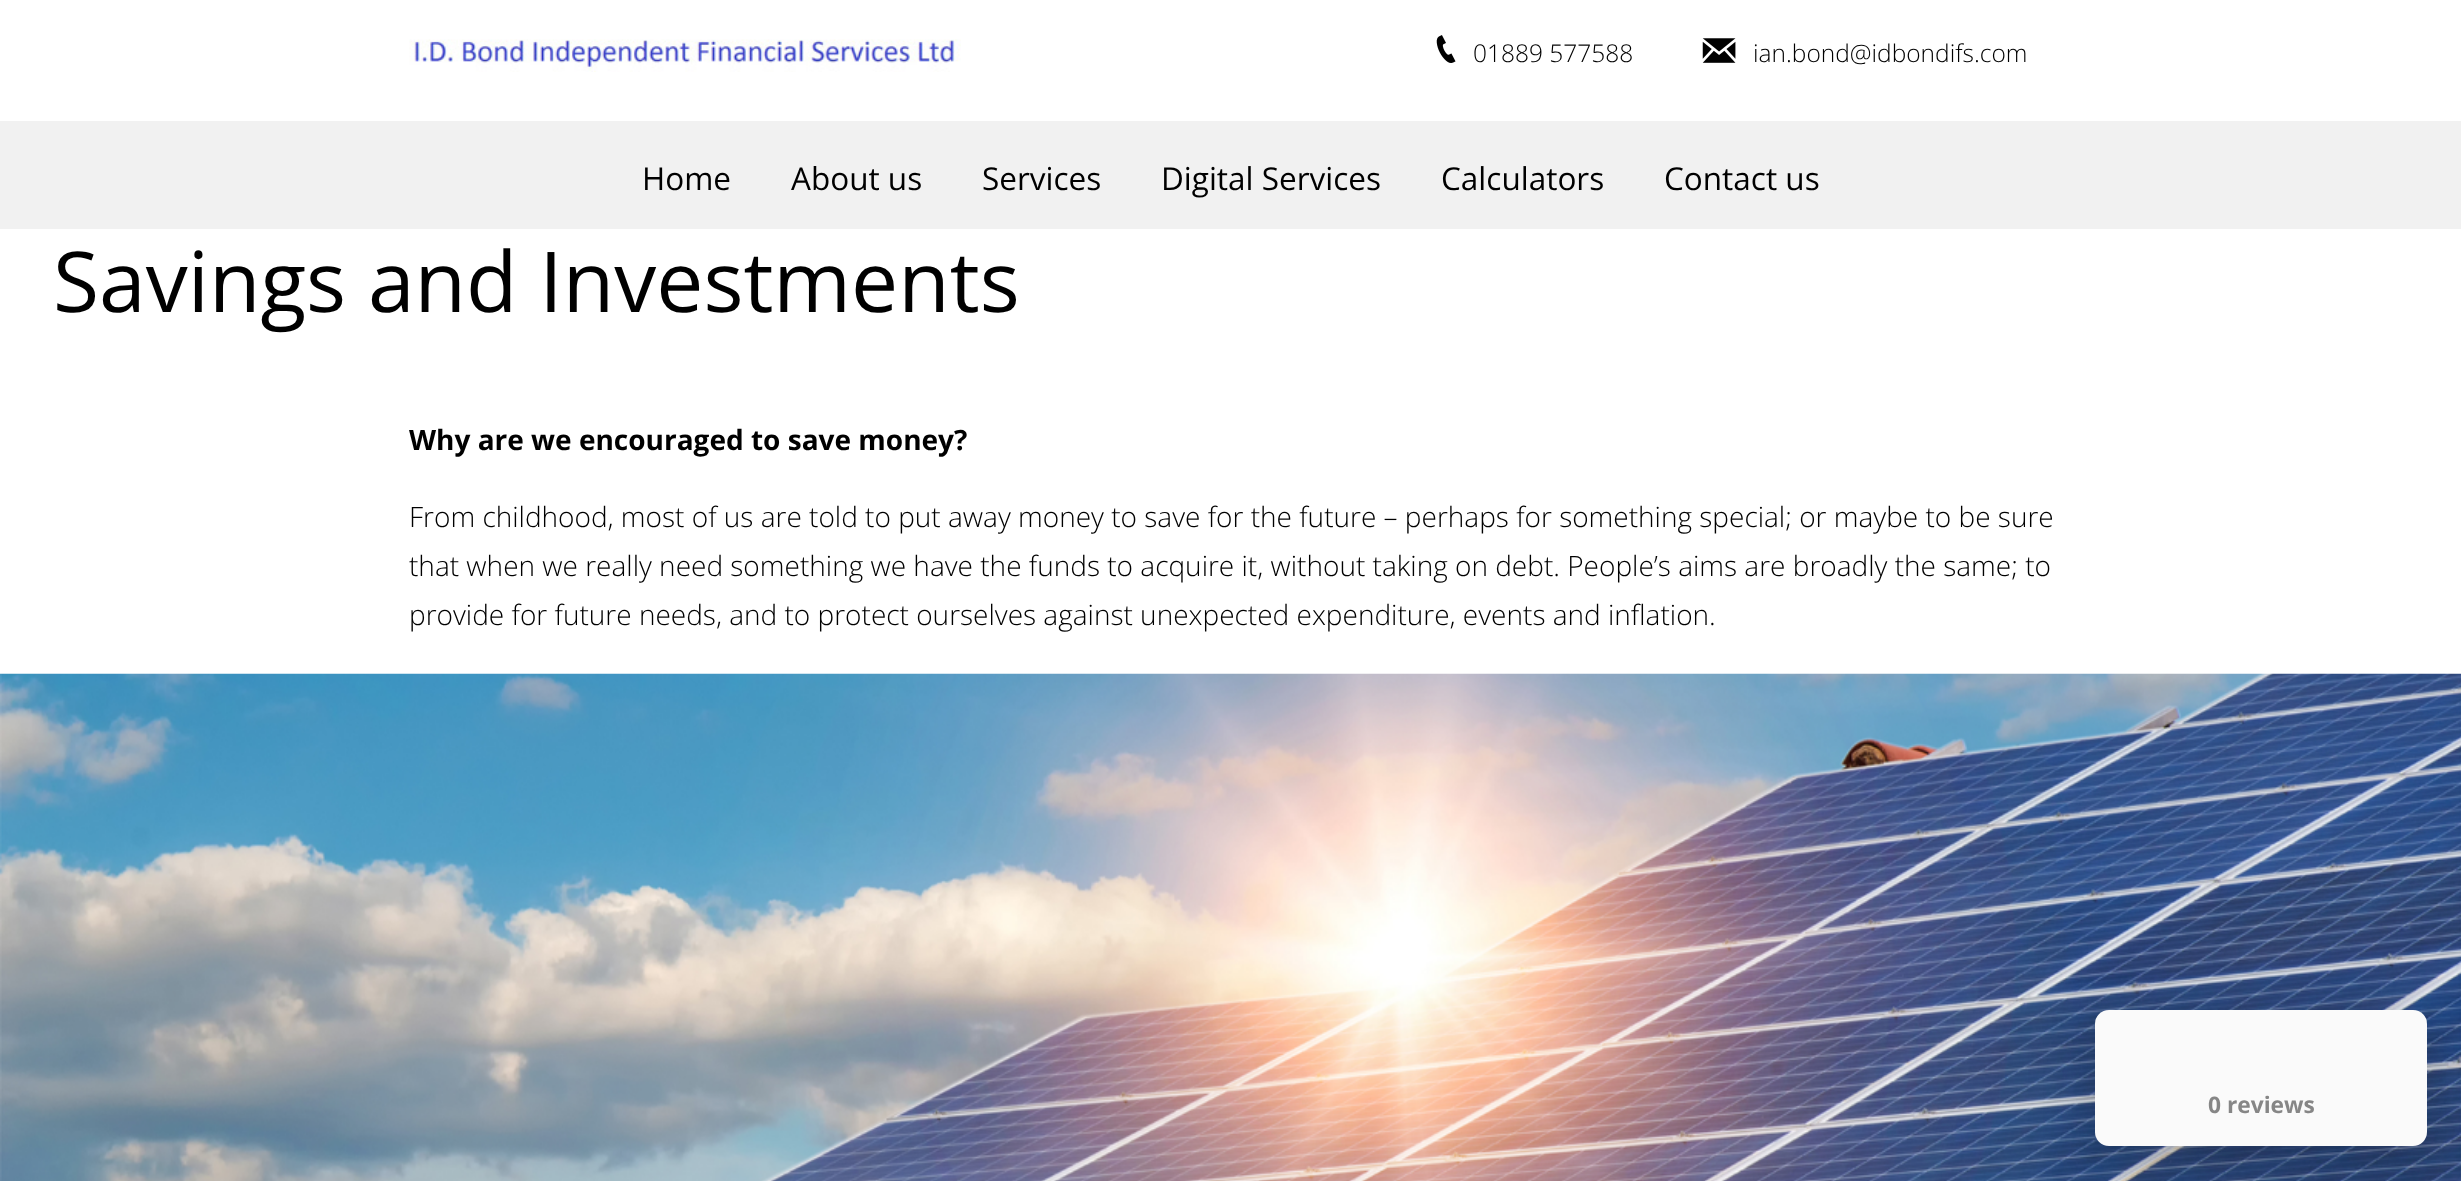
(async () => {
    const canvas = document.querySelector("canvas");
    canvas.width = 2461;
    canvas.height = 1181;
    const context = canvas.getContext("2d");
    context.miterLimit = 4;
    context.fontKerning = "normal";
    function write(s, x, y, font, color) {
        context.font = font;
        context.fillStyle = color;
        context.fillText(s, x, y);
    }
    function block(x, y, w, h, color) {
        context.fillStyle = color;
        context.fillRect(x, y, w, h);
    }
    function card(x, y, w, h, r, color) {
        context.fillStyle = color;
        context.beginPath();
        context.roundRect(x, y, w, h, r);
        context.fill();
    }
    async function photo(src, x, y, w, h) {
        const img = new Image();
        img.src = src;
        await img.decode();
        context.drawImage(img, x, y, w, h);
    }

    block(0, 0, 2461, 1181, "rgb(255, 255, 255)");
    await photo("media/1.png", 409, 39, 552, 33);
    await photo("media/2.png", 1436, 35, 20, 28);
    write("01889 577588", 1473, 62, "300 24.5px Open Sans", "rgb(0, 0, 0)");
    await photo("media/3.png", 1702, 38, 34, 25);
    write("ian.bond@idbondifs.com", 1753, 62, "300 24.5px Open Sans", "rgb(0, 0, 0)");
    block(0, 121, 2461, 108, "rgb(241, 241, 241)");
    write("Home", 642, 190, "31.5px Open Sans", "rgb(0, 0, 0)");
    write("About us", 791, 190, "31.5px Open Sans", "rgb(0, 0, 0)");
    write("Services", 982, 190, "31.5px Open Sans", "rgb(0, 0, 0)");
    write("Digital Services", 1161, 190, "31.5px Open Sans", "rgb(0, 0, 0)");
    write("Calculators", 1441, 190, "31.5px Open Sans", "rgb(0, 0, 0)");
    write("Contact us", 1664, 190, "31.5px Open Sans", "rgb(0, 0, 0)");
    write("Savings and Investments", 53, 312, "84px Open Sans", "rgb(0, 0, 0)");
    write("Why are we encouraged to save money?", 409, 450, "bold 28px Open Sans", "rgb(0, 0, 0)");
    write("From childhood, most of us are told to put away money to save for the future – perhaps for something special; or maybe to be sure", 409, 527, "300 28px Open Sans", "rgb(0, 0, 0)");
    write("that when we really need something we have the funds to acquire it, without taking on debt. People’s aims are broadly the same; to", 409, 576, "300 28px Open Sans", "rgb(0, 0, 0)");
    write("provide for future needs, and to protect ourselves against unexpected expenditure, events and inflation.", 409, 625, "300 28px Open Sans", "rgb(0, 0, 0)");
    await photo("media/4.png", 0, 673, 2461, 508);
    context.fillStyle = "rgba(0, 0, 0, 0.15)";
    context.filter = "blur(26px)";
    context.beginPath();
    context.roundRect(2095, 1027, 332, 137, 14);
    context.fill();
    context.filter = "none";
    context.fillStyle = "rgba(0, 0, 0, 0.1)";
    context.filter = "blur(35px)";
    context.beginPath();
    context.roundRect(2095, 1036, 332, 137, 14);
    context.fill();
    context.filter = "none";
    card(2095, 1010, 332, 136, 14, "rgb(250, 250, 250)");
    write("0 reviews", 2208, 1113, "bold 22.75px Open Sans", "rgb(134, 134, 134)");
})();
